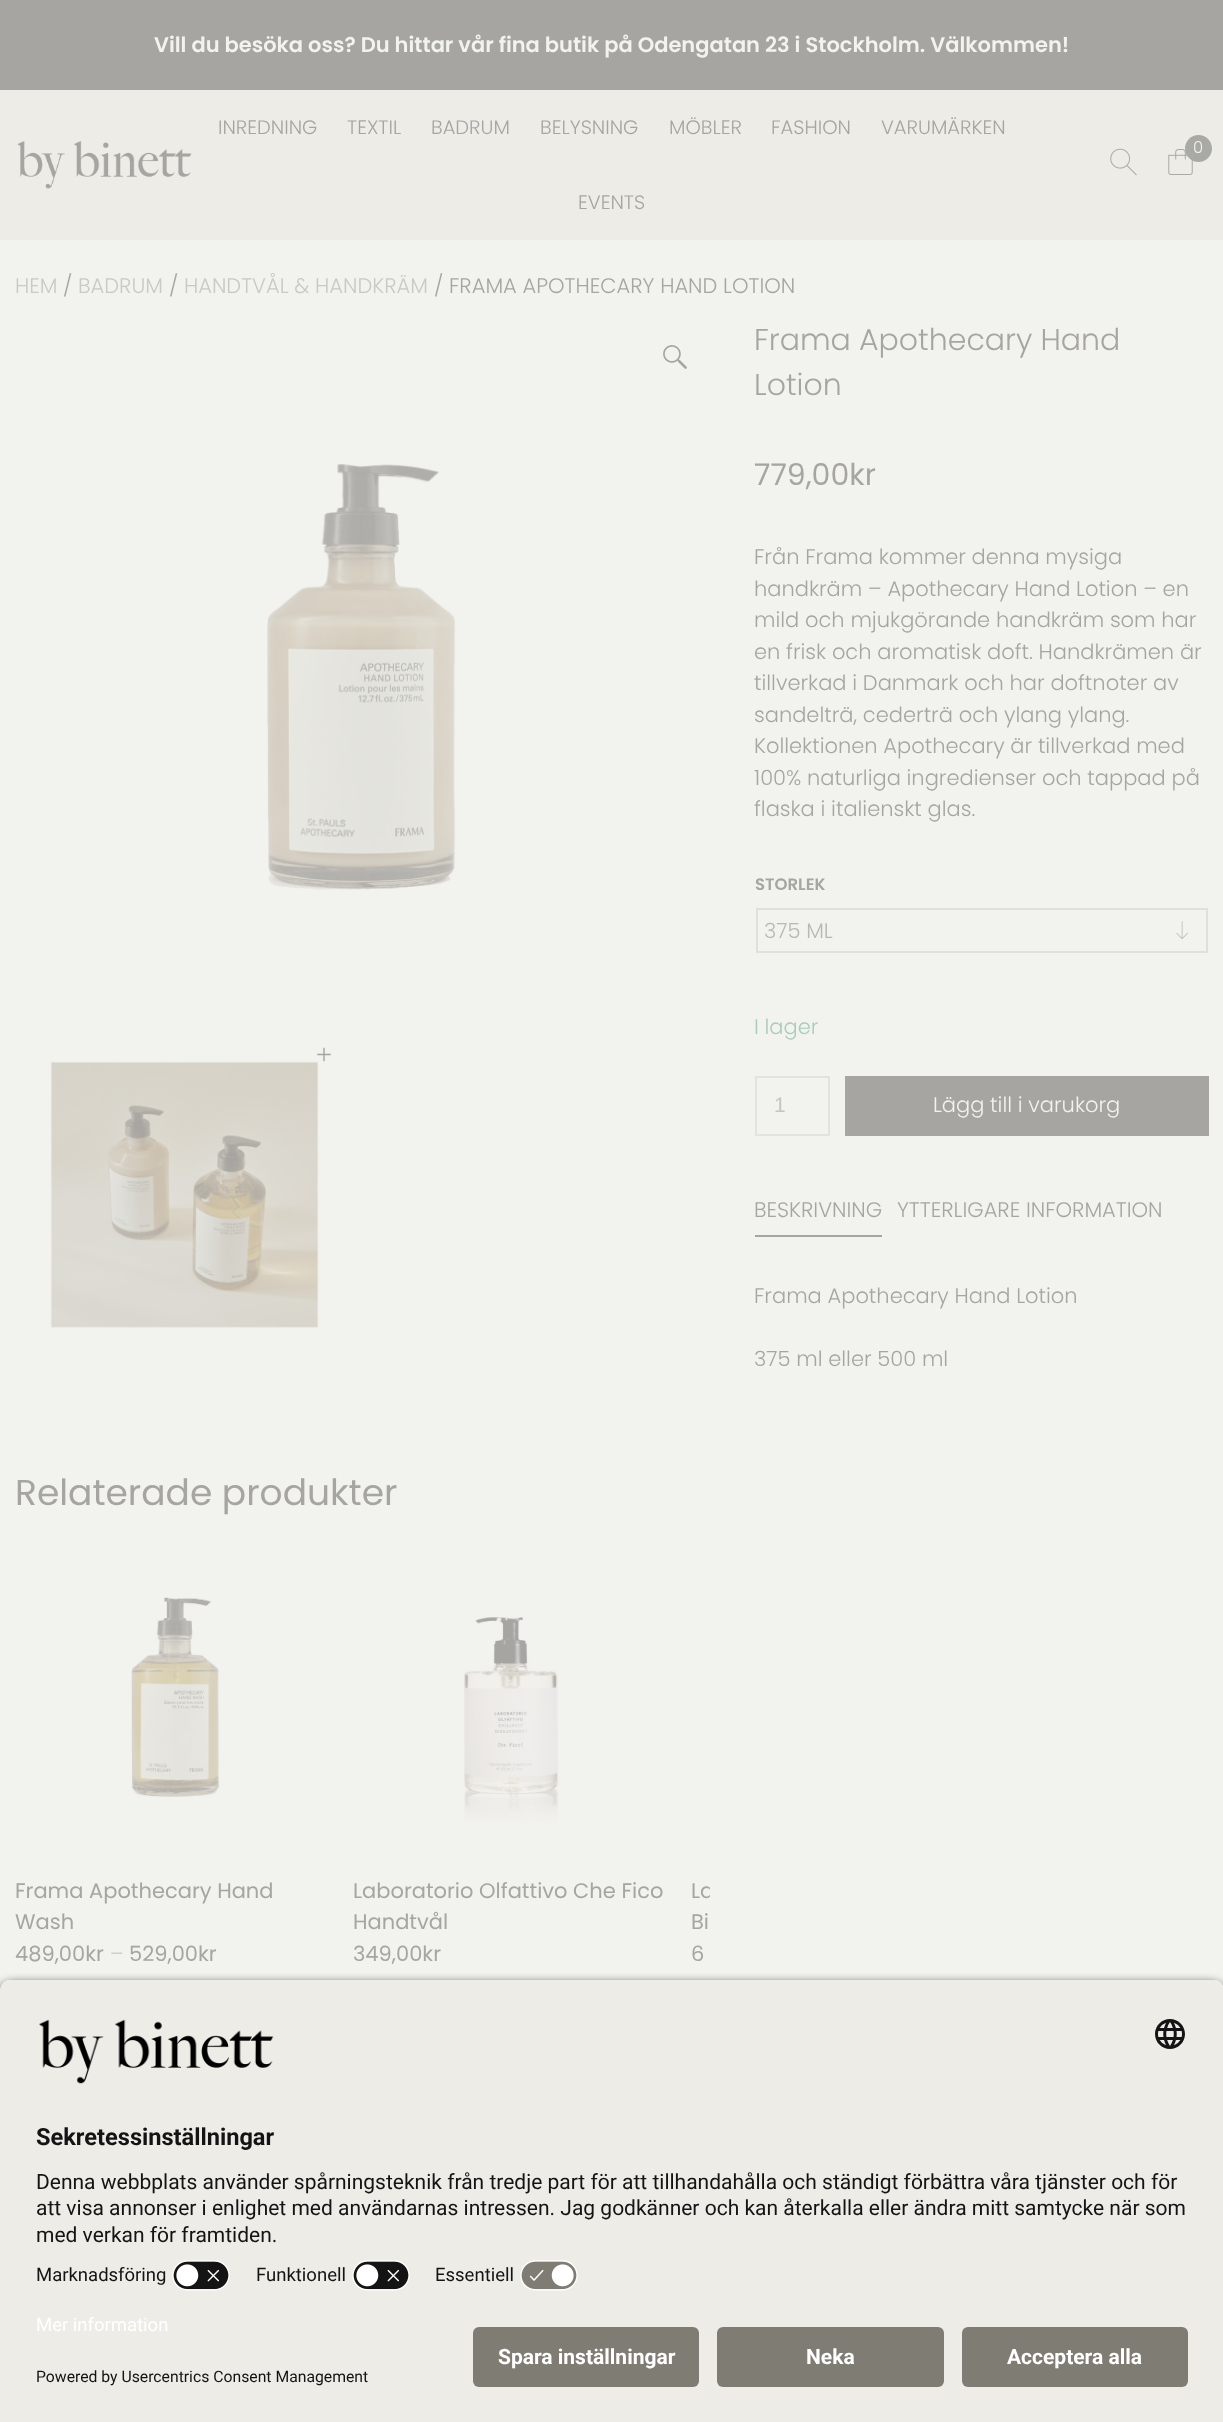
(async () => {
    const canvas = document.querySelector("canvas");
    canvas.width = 1223;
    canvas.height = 2422;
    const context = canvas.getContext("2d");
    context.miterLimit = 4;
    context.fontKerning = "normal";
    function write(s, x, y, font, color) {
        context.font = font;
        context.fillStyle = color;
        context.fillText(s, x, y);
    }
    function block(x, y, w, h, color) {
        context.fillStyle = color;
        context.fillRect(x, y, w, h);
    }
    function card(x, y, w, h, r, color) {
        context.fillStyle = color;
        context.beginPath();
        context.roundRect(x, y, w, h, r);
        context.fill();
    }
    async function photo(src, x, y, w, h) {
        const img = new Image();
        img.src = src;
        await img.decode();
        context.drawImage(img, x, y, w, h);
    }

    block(0, 0, 1223, 2422, "rgb(242, 242, 238)");
    block(0, 90, 1223, 150, "rgb(237, 236, 231)");
    block(0, 0, 1223, 90, "rgb(166, 165, 162)");
    write("Vill du besöka oss? Du hittar vår fina butik på Odengatan 23 i Stockholm. Välkommen!", 154, 52, "600 21px Poppins", "rgb(242, 242, 238)");
    await photo("media/1.png", 17, 141, 175, 48);
    write("INREDNING", 218, 134, "300 19.5px Poppins", "rgb(166, 165, 162)");
    write("TEXTIL", 347, 134, "300 19.5px Poppins", "rgb(166, 165, 162)");
    write("BADRUM", 431, 134, "300 19.5px Poppins", "rgb(166, 165, 162)");
    write("BELYSNING", 540, 134, "300 19.5px Poppins", "rgb(166, 165, 162)");
    write("MÖBLER", 669, 134, "300 19.5px Poppins", "rgb(166, 165, 162)");
    write("FASHION", 771, 134, "300 19.5px Poppins", "rgb(166, 165, 162)");
    write("VARUMÄRKEN", 881, 134, "300 19.5px Poppins", "rgb(166, 165, 162)");
    write("EVENTS", 578, 209, "300 19.5px Poppins", "rgb(166, 165, 162)");
    await photo("media/2.png", 1110, 148, 27, 28);
    await photo("media/3.png", 1168, 149, 25, 26);
    context.fillStyle = "rgb(169, 169, 165)";
    context.beginPath();
    context.arc(1198.5, 148.5, 13.5, 0, Math.PI * 2);
    context.fill();
    write("0", 1193, 153, "300 16.5px Poppins", "rgb(242, 242, 238)");
    write("HEM", 15, 293, "300 21px Poppins", "rgb(202, 201, 197)");
    write("/", 63, 293, "300 21px Poppins", "rgb(166, 165, 162)");
    write("BADRUM", 78, 293, "300 21px Poppins", "rgb(202, 201, 197)");
    write("/", 169, 293, "300 21px Poppins", "rgb(166, 165, 162)");
    write("HANDTVÅL & HANDKRÄM", 184, 293, "300 21px Poppins", "rgb(202, 201, 197)");
    write("/ FRAMA APOTHECARY HAND LOTION", 434, 293, "300 21px Poppins", "rgb(166, 165, 162)");
    await photo("media/4.png", 663, 345, 24, 24);
    await photo("media/5.png", 267, 463, 189, 427);
    await photo("media/7.png", 50, 1061, 269, 267);
    await photo("media/6.png", 317, 1047, 14, 15);
    write("Frama Apothecary Hand", 754, 350, "300 30px Poppins", "rgb(166, 165, 162)");
    write("Lotion", 754, 395, "300 30px Poppins", "rgb(166, 165, 162)");
    write("779,00kr", 754, 485, "30px Poppins", "rgb(166, 165, 162)");
    write("Från Frama kommer denna mysiga", 754, 564, "300 21px Poppins", "rgb(166, 165, 162)");
    write("handkräm – Apothecary Hand Lotion – en", 754, 596, "300 21px Poppins", "rgb(166, 165, 162)");
    write("mild och mjukgörande handkräm som har", 754, 627, "300 21px Poppins", "rgb(166, 165, 162)");
    write("en frisk och aromatisk doft. Handkrämen är", 754, 659, "300 21px Poppins", "rgb(166, 165, 162)");
    write("tillverkad i Danmark och har doftnoter av", 754, 690, "300 21px Poppins", "rgb(166, 165, 162)");
    write("sandelträ, cederträ och ylang ylang.", 754, 722, "300 21px Poppins", "rgb(166, 165, 162)");
    write("Kollektionen Apothecary är tillverkad med", 754, 753, "300 21px Poppins", "rgb(166, 165, 162)");
    write("100% naturliga ingredienser och tappad på", 754, 785, "300 21px Poppins", "rgb(166, 165, 162)");
    write("flaska i italienskt glas.", 754, 816, "300 21px Poppins", "rgb(166, 165, 162)");
    write("STORLEK", 755, 890, "600 16.5px Poppins", "rgb(166, 165, 162)");
    await photo("media/8.png", 1176, 921, 12, 18);
    context.strokeStyle = "rgb(224, 223, 219)";
    context.lineWidth = 2;
    context.strokeRect(757, 909, 450, 43);
    write("375 ML", 764, 938, "300 21px Poppins", "rgb(185, 184, 181)");
    write("I lager", 754, 1034, "300 21px Poppins", "rgb(170, 205, 185)");
    context.strokeStyle = "rgb(227, 226, 223)";
    context.strokeRect(756, 1077, 73, 58);
    write("1", 774, 1112, "21px Liberation Sans", "rgb(196, 196, 192)");
    block(845, 1076, 364, 60, "rgb(166, 165, 162)");
    write("Lägg till i varukorg", 933, 1112, "300 21px Poppins", "rgb(242, 242, 238)");
    block(755, 1235, 127, 2, "rgb(166, 165, 162)");
    write("BESKRIVNING", 754, 1217, "300 21px Poppins", "rgb(166, 165, 162)");
    write("YTTERLIGARE INFORMATION", 897, 1217, "300 21px Poppins", "rgb(166, 165, 162)");
    write("Frama Apothecary Hand Lotion", 754, 1303, "300 21px Poppins", "rgb(166, 165, 162)");
    write("375 ml eller 500 ml", 754, 1366, "300 21px Poppins", "rgb(166, 165, 162)");
    write("Relaterade produkter", 15, 1505, "36px Poppins", "rgb(166, 165, 162)");
    await photo("media/9.png", 131, 1597, 89, 200);
    write("Frama Apothecary Hand", 15, 1898, "21px Poppins", "rgb(166, 165, 162)");
    write("Wash", 15, 1929, "21px Poppins", "rgb(166, 165, 162)");
    write("489,00kr", 15, 1961, "21px Poppins", "rgb(166, 165, 162)");
    write("–", 110, 1961, "300 21px Poppins", "rgb(202, 201, 197)");
    write("529,00kr", 129, 1961, "21px Poppins", "rgb(166, 165, 162)");
    await photo("media/10.png", 464, 1617, 95, 204);
    write("Laboratorio Olfattivo Che Fico", 353, 1898, "21px Poppins", "rgb(166, 165, 162)");
    write("Handtvål", 353, 1929, "21px Poppins", "rgb(166, 165, 162)");
    write("349,00kr", 353, 1961, "21px Poppins", "rgb(166, 165, 162)");
    context.save();
    context.beginPath();
    context.rect(15, 1467, 695, 503);
    context.clip();
    write("La", 691, 1898, "21px Poppins", "rgb(166, 165, 162)");
    context.restore();
    write("Bi", 691, 1929, "21px Poppins", "rgb(166, 165, 162)");
    write("6", 691, 1961, "21px Poppins", "rgb(166, 165, 162)");
    context.fillStyle = "rgba(0, 0, 0, 0.8)";
    context.filter = "blur(5px)";
    context.beginPath();
    context.roundRect(0, 1983, 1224, 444, 12);
    context.fill();
    context.filter = "none";
    context.save();
    context.beginPath();
    context.moveTo(12, 1979);
    context.lineTo(1212, 1979);
    context.bezierCurveTo(1218.5, 1979, 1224, 1984.5, 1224, 1991);
    context.lineTo(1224, 2315);
    context.lineTo(0, 2315);
    context.lineTo(0, 1991);
    context.bezierCurveTo(0, 1984.5, 5.5, 1979, 12, 1979);
    context.closePath();
    context.clip();
    block(0, 1980, 1223, 335, "rgb(237, 236, 231)");
    block(0, 1980, 1223, 275, "rgb(237, 236, 231)");
    context.restore();
    await photo("media/11.png", 39, 2019, 235, 65);
    await photo("media/12.png", 1155, 2019, 30, 30);
    write("Sekretessinställningar", 36, 2145, "bold 23.6px Roboto", "rgb(20, 20, 20)");
    write("Denna webbplats använder spårningsteknik från tredje part för att tillhandahålla och ständigt förbättra våra tjänster och för", 36, 2189, "21px Roboto", "rgb(20, 20, 20)");
    write("att visa annonser i enlighet med användarnas intressen. Jag godkänner och kan återkalla eller ändra mitt samtycke när som", 36, 2215, "21px Roboto", "rgb(20, 20, 20)");
    write("med verkan för framtiden.", 36, 2242, "21px Roboto", "rgb(20, 20, 20)");
    write("Marknadsföring", 36, 2281, "18.5px Roboto", "rgb(20, 20, 20)");
    await photo("media/13.png", 172, 2260, 58, 31);
    write("Funktionell", 256, 2281, "18.5px Roboto", "rgb(20, 20, 20)");
    await photo("media/13.png", 352, 2260, 58, 31);
    write("Essentiell", 435, 2281, "18.5px Roboto", "rgb(20, 20, 20)");
    await photo("media/14.png", 520, 2260, 58, 31);
    block(0, 2315, 1223, 107, "rgb(237, 236, 231)");
    write("Mer information", 36, 2331, "18.5px Roboto", "rgb(255, 255, 255)");
    write("Powered by Usercentrics Consent Management", 36, 2382, "15.75px Roboto", "rgb(20, 20, 20)");
    card(473, 2327, 226, 60, 6, "rgb(127, 124, 116)");
    write("Spara inställningar", 498, 2364, "bold 21px Roboto", "rgb(255, 255, 255)");
    card(717, 2327, 227, 60, 6, "rgb(127, 124, 116)");
    write("Neka", 806, 2364, "bold 21px Roboto", "rgb(255, 255, 255)");
    card(962, 2327, 226, 60, 6, "rgb(127, 124, 116)");
    write("Acceptera alla", 1007, 2364, "bold 21px Roboto", "rgb(255, 255, 255)");
})();
